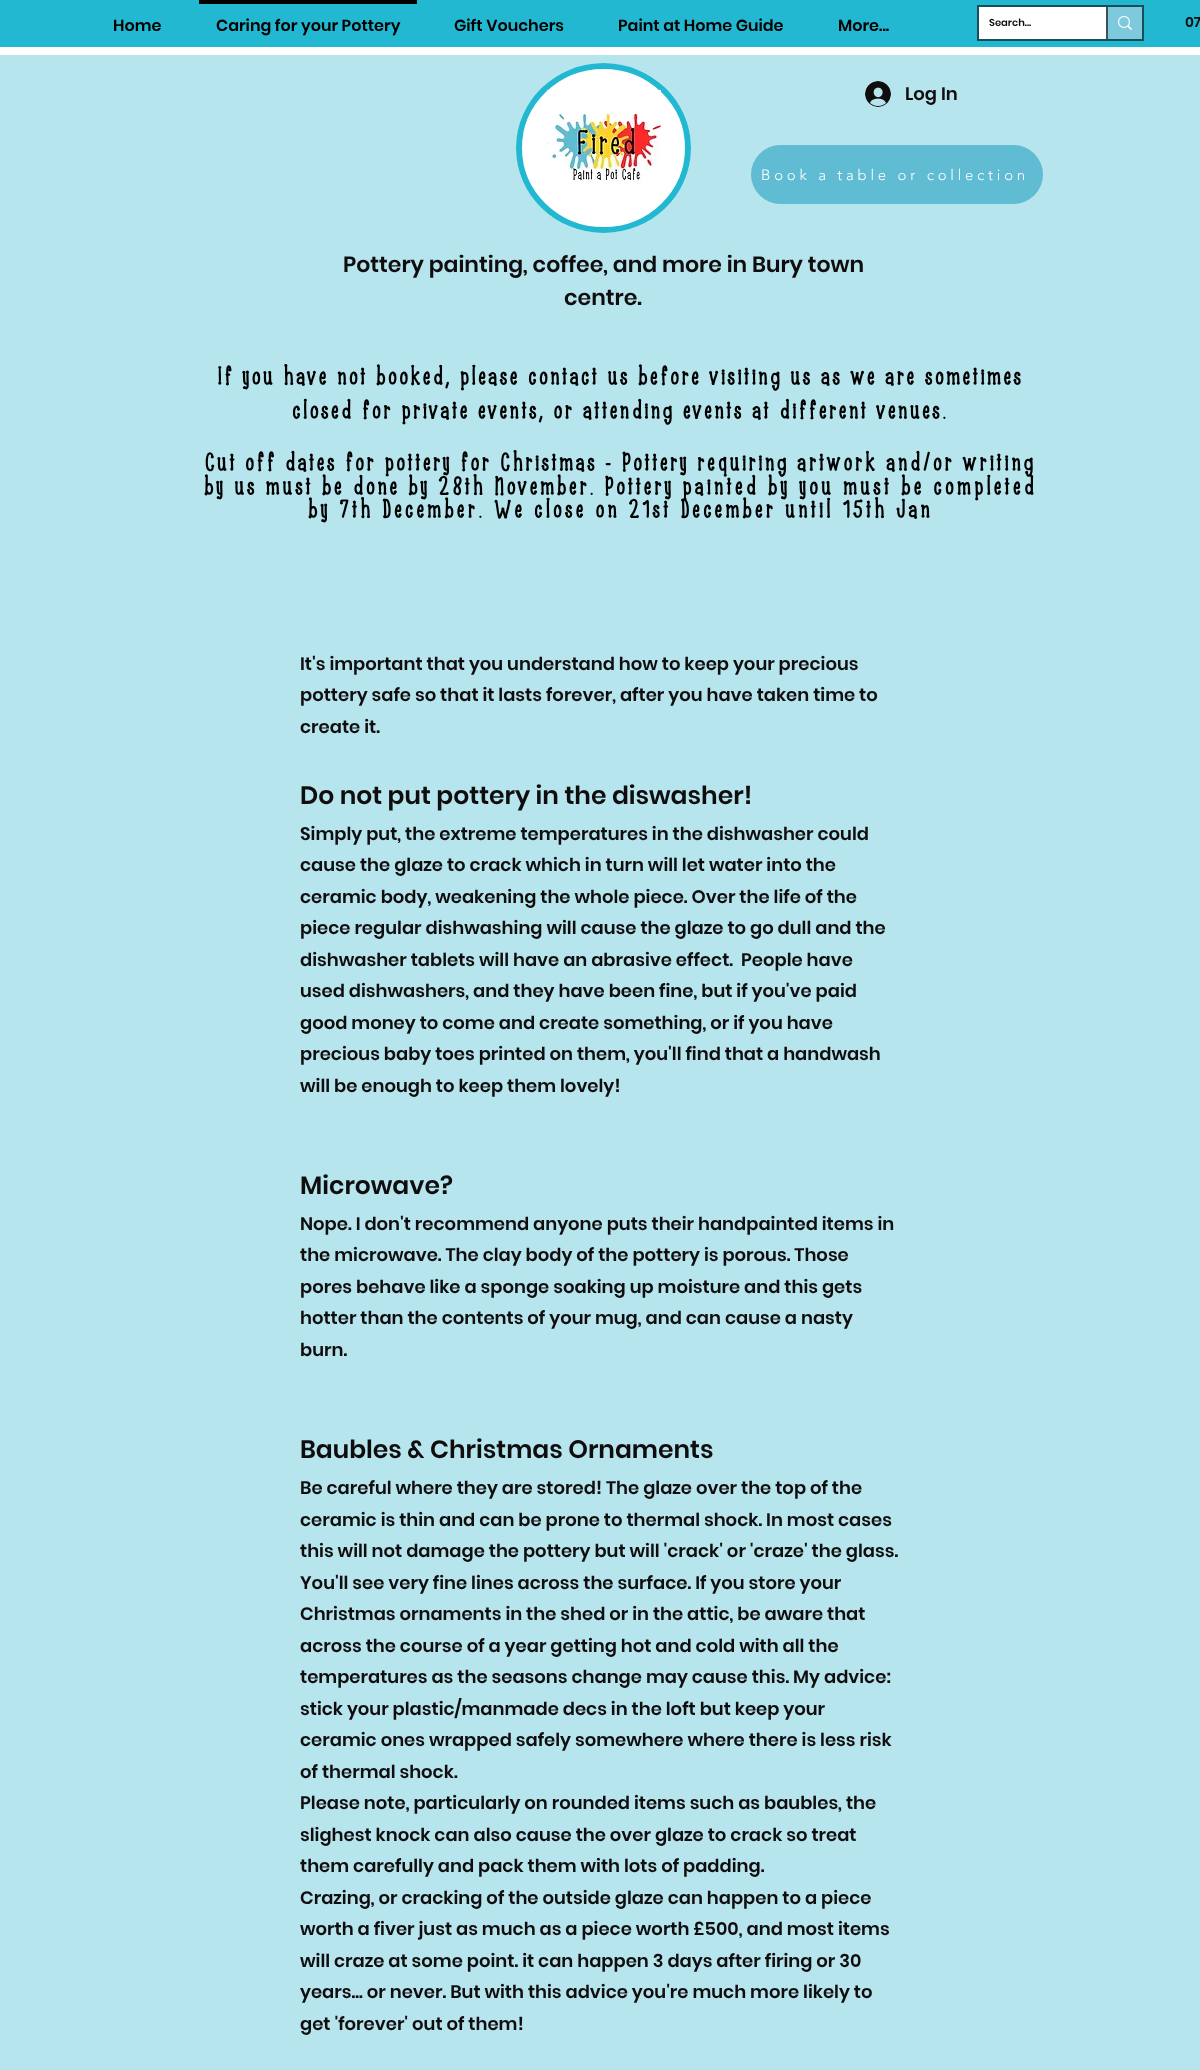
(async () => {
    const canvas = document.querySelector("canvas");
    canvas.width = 1200;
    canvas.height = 2070;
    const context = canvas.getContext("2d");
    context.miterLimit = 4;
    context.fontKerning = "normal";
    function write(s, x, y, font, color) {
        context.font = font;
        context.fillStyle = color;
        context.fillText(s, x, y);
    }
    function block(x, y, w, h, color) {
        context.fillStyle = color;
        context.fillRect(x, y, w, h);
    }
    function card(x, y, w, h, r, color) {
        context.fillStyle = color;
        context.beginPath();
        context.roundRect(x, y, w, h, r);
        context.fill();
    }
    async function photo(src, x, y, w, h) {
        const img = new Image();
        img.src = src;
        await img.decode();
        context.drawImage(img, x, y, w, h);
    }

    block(0, 0, 1200, 2070, "rgb(183, 229, 237)");
    block(0, 0, 1200, 47, "rgb(34, 184, 209)");
    write("Home", 113, 31, "600 16px Poppins", "rgb(0, 0, 0)");
    block(199, 0, 218, 4, "rgb(0, 0, 0)");
    write("Caring for your Pottery", 216, 31, "600 16px Poppins", "rgb(0, 0, 0)");
    write("Gift Vouchers", 454, 31, "600 16px Poppins", "rgb(0, 0, 0)");
    write("Paint at Home Guide", 618, 31, "600 16px Poppins", "rgb(0, 0, 0)");
    write("More...", 838, 31, "600 16px Poppins", "rgb(0, 0, 0)");
    context.strokeStyle = "rgb(23, 78, 89)";
    context.lineWidth = 2;
    context.strokeRect(978, 6, 165, 34);
    block(979, 7, 127, 32, "rgb(255, 255, 255)");
    write("Search...", 989, 26, "600 10px Poppins", "rgb(16, 13, 15)");
    block(1108, 7, 34, 32, "rgb(127, 201, 220)");
    block(1106, 7, 2, 32, "rgb(58, 84, 93)");
    await photo("media/1.png", 1118, 16, 14, 14);
    write("07", 1185, 27, "600 14px Poppins", "rgb(16, 13, 15)");
    context.fillStyle = "rgb(255, 255, 255)";
    context.beginPath();
    context.ellipse(603.5, 148, 87.5, 85, 0, 0, Math.PI * 2);
    context.fill();
    context.beginPath();
    context.moveTo(603.5, 66);
    context.bezierCurveTo(650, 66, 688, 102.5, 688, 148);
    context.bezierCurveTo(688, 193.5, 650, 230, 603.5, 230);
    context.bezierCurveTo(557, 230, 519, 193.5, 519, 148);
    context.bezierCurveTo(519, 102.5, 557, 66, 603.5, 66);
    context.closePath();
    context.strokeStyle = "rgb(34, 184, 209)";
    context.lineWidth = 6;
    context.stroke();
    await photo("media/2.png", 547, 90, 114, 92);
    await photo("media/3.png", 865, 81, 26, 26);
    write("Log In", 905, 100, "600 18px Poppins", "rgb(16, 13, 15)");
    card(751, 145, 292, 59, 29.5, "rgb(95, 188, 211)");
    context.letterSpacing = "3.75px";
    write("Book a table or collection", 761, 180, "300 15px 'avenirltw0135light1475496'", "rgb(255, 255, 255)");
    context.letterSpacing = "0px";
    write("Pottery painting, coffee, and more in Bury town", 343, 272, "600 22px Poppins", "rgb(16, 13, 15)");
    write("centre.", 564, 305, "600 22px Poppins", "rgb(16, 13, 15)");
    context.letterSpacing = "0.75px";
    write("If you have not booked, please contact us before visiting us as we are sometimes", 217, 385, "bold 25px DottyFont", "rgb(0, 0, 0)");
    write("closed for private events, or attending events at different venues.", 292, 419, "bold 25px DottyFont", "rgb(0, 0, 0)");
    write("Cut off dates for pottery for Christmas - Pottery requiring", 204, 471, "bold 25px DottyFont", "rgb(0, 0, 0)");
    context.letterSpacing = "1.05px";
    write("artwork and/or writing", 797, 471, "bold 25px DottyFont", "rgb(0, 0, 0)");
    write("by us must be done by 28th November. Pottery", 204, 495, "bold 25px DottyFont", "rgb(0, 0, 0)");
    context.letterSpacing = "1.45px";
    write("painted by you must be completed", 682, 495, "bold 25px DottyFont", "rgb(0, 0, 0)");
    write("by 7th December. We close on 21st December until 15th Jan", 308, 518, "bold 25px DottyFont", "rgb(0, 0, 0)");
    block(0, 47, 1200, 8, "rgb(255, 255, 255)");
    context.letterSpacing = "0px";
    write("It's important that you understand how to keep your precious", 300, 670, "600 18px Poppins", "rgb(16, 13, 15)");
    write("pottery safe so that it lasts forever, after you have taken time to", 300, 701, "600 18px Poppins", "rgb(16, 13, 15)");
    write("create it.", 300, 733, "600 18px Poppins", "rgb(16, 13, 15)");
    write("Do not put pottery in the diswasher!", 300, 804, "600 25px Poppins", "rgb(16, 13, 15)");
    write("Simply put, the extreme temperatures in the dishwasher could", 300, 840, "600 18px Poppins", "rgb(16, 13, 15)");
    write("cause the glaze to crack which in turn will let water into the", 300, 871, "600 18px Poppins", "rgb(16, 13, 15)");
    write("ceramic body, weakening the whole piece. Over the life of the", 300, 903, "600 18px Poppins", "rgb(16, 13, 15)");
    write("piece regular dishwashing will cause the glaze to go dull and the", 300, 934, "600 18px Poppins", "rgb(16, 13, 15)");
    write("dishwasher tablets will have an abrasive effect.  People have", 300, 966, "600 18px Poppins", "rgb(16, 13, 15)");
    write("used dishwashers, and they have been fine, but if you've paid", 300, 997, "600 18px Poppins", "rgb(16, 13, 15)");
    write("good money to come and create something, or if you have", 300, 1029, "600 18px Poppins", "rgb(16, 13, 15)");
    write("precious baby toes printed on them, you'll find that a handwash", 300, 1060, "600 18px Poppins", "rgb(16, 13, 15)");
    write("will be enough to keep them lovely!", 300, 1092, "600 18px Poppins", "rgb(16, 13, 15)");
    write("Microwave?", 300, 1194, "600 25px Poppins", "rgb(16, 13, 15)");
    write("Nope. I don't recommend anyone puts their handpainted items in", 300, 1230, "600 18px Poppins", "rgb(16, 13, 15)");
    write("the microwave. The clay body of the pottery is porous. Those", 300, 1261, "600 18px Poppins", "rgb(16, 13, 15)");
    write("pores behave like a sponge soaking up moisture and this gets", 300, 1293, "600 18px Poppins", "rgb(16, 13, 15)");
    write("hotter than the contents of your mug, and can cause a nasty", 300, 1324, "600 18px Poppins", "rgb(16, 13, 15)");
    write("burn.", 300, 1356, "600 18px Poppins", "rgb(16, 13, 15)");
    write("Baubles & Christmas Ornaments", 300, 1458, "600 25px Poppins", "rgb(16, 13, 15)");
    write("Be careful where they are stored! The glaze over the top of the", 300, 1494, "600 18px Poppins", "rgb(16, 13, 15)");
    write("ceramic is thin and can be prone to thermal shock. In most cases", 300, 1526, "600 18px Poppins", "rgb(16, 13, 15)");
    write("this will not damage the pottery but will 'crack' or 'craze' the glass.", 300, 1557, "600 18px Poppins", "rgb(16, 13, 15)");
    write("You'll see very fine lines across the surface. If you store your", 300, 1589, "600 18px Poppins", "rgb(16, 13, 15)");
    write("Christmas ornaments in the shed or in the attic, be aware that", 300, 1620, "600 18px Poppins", "rgb(16, 13, 15)");
    write("across the course of a year getting hot and cold with all the", 300, 1652, "600 18px Poppins", "rgb(16, 13, 15)");
    write("temperatures as the seasons change may cause this. My advice:", 300, 1683, "600 18px Poppins", "rgb(16, 13, 15)");
    write("stick your plastic/manmade decs in the loft but keep your", 300, 1715, "600 18px Poppins", "rgb(16, 13, 15)");
    write("ceramic ones wrapped safely somewhere where there is less risk", 300, 1746, "600 18px Poppins", "rgb(16, 13, 15)");
    write("of thermal shock.", 300, 1778, "600 18px Poppins", "rgb(16, 13, 15)");
    write("Please note, particularly on rounded items such as baubles, the", 300, 1809, "600 18px Poppins", "rgb(16, 13, 15)");
    write("slighest knock can also cause the over glaze to crack so treat", 300, 1841, "600 18px Poppins", "rgb(16, 13, 15)");
    write("them carefully and pack them with lots of padding.", 300, 1872, "600 18px Poppins", "rgb(16, 13, 15)");
    write("Crazing, or cracking of the outside glaze can happen to a piece", 300, 1904, "600 18px Poppins", "rgb(16, 13, 15)");
    write("worth a fiver just as much as a piece worth £500, and most items", 300, 1935, "600 18px Poppins", "rgb(16, 13, 15)");
    write("will craze at some point. it can happen 3 days after firing or 30", 300, 1967, "600 18px Poppins", "rgb(16, 13, 15)");
    write("years... or never. But with this advice you're much more likely to", 300, 1998, "600 18px Poppins", "rgb(16, 13, 15)");
    write("get 'forever' out of them!", 300, 2030, "600 18px Poppins", "rgb(16, 13, 15)");
})();
